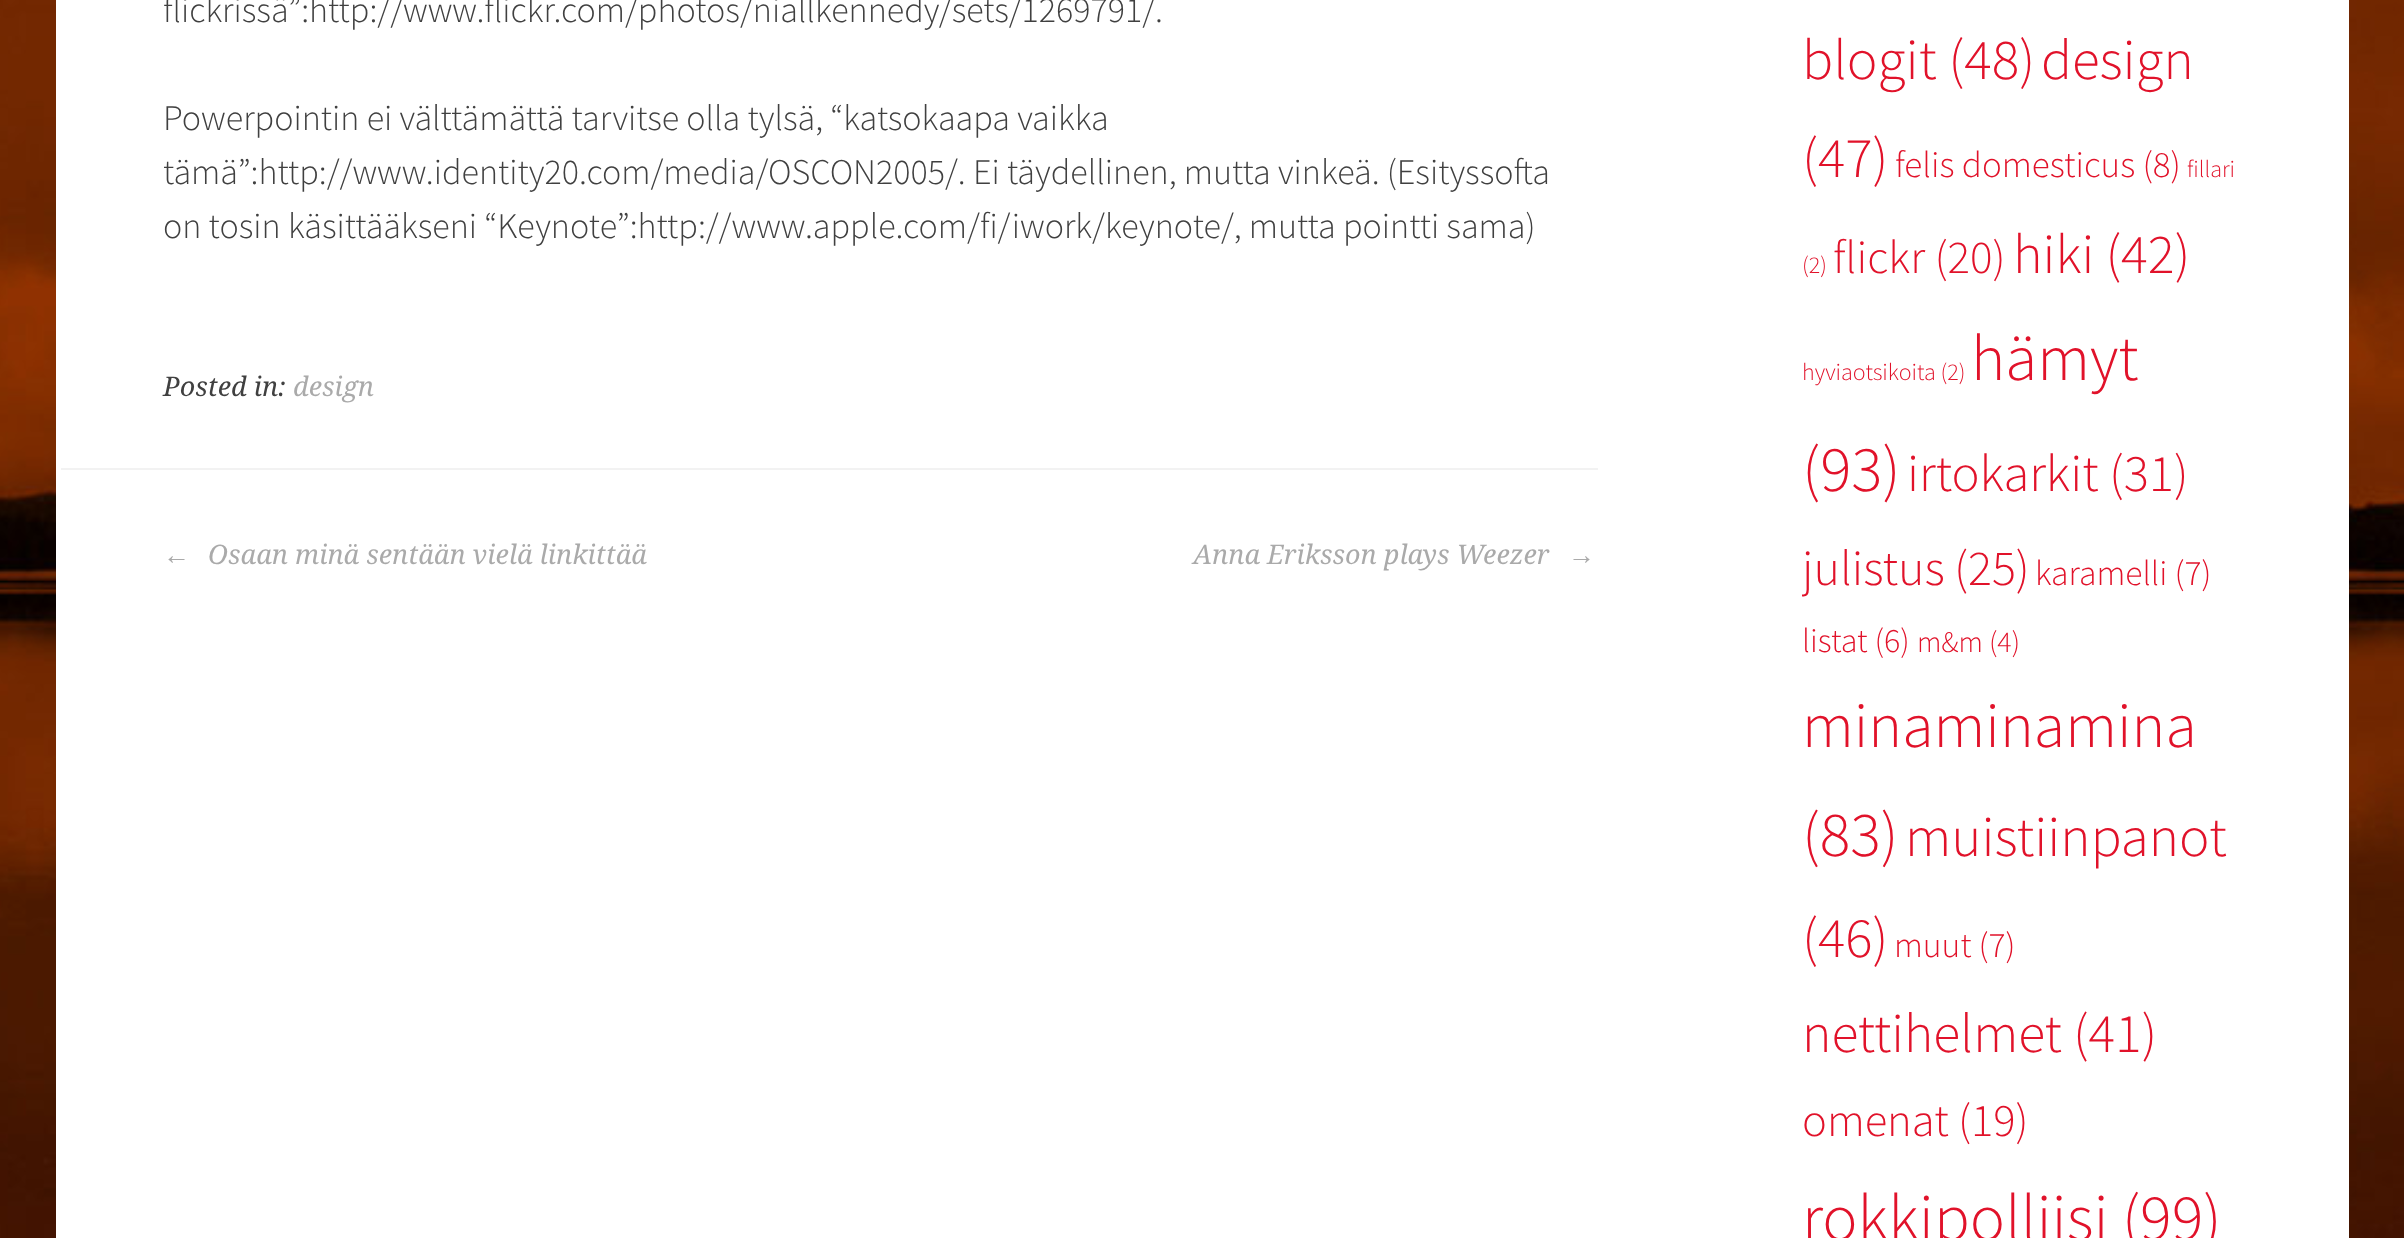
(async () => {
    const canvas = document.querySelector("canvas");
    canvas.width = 2404;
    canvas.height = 1238;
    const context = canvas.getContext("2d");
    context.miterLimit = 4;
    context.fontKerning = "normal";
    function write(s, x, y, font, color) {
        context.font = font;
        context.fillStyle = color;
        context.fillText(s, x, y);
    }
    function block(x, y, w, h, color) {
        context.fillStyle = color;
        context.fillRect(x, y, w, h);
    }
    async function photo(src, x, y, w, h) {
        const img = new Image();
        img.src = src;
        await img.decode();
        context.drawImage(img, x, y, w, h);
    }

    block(0, 0, 2404, 1238, "rgb(255, 255, 255)");
    await photo("media/1.png", 0, 0, 2404, 1238);
    block(56, 0, 2293, 1238, "rgb(255, 255, 255)");
    write("flickrissä”:http://www.flickr.com/photos/niallkennedy/sets/1269791/.", 163, 22, "300 36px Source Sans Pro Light", "rgb(64, 64, 64)");
    write("Powerpointin ei välttämättä tarvitse olla tylsä, “katsokaapa vaikka", 163, 130, "300 36px Source Sans Pro Light", "rgb(64, 64, 64)");
    write("tämä”:http://www.identity20.com/media/OSCON2005/. Ei täydellinen, mutta vinkeä. (Esityssofta", 163, 184, "300 36px Source Sans Pro Light", "rgb(64, 64, 64)");
    write("on tosin käsittääkseni “Keynote”:http://www.apple.com/fi/iwork/keynote/, mutta pointti sama)", 163, 238, "300 36px Source Sans Pro Light", "rgb(64, 64, 64)");
    write("Posted in:", 163, 396, "italic 27px Droid Serif", "rgb(64, 64, 64)");
    write("design", 293, 396, "italic 27px Droid Serif", "rgb(170, 170, 170)");
    block(61, 468, 1537, 2, "rgb(242, 242, 242)");
    write("←", 163, 564, "italic 27px Liberation Serif", "rgb(170, 170, 170)");
    write("Osaan minä sentään vielä linkittää", 208, 564, "italic 27px Droid Serif", "rgb(170, 170, 170)");
    write("Anna Eriksson plays Weezer", 1193, 564, "italic 27px Droid Serif", "rgb(170, 170, 170)");
    write("→", 1568, 564, "italic 27px Liberation Serif", "rgb(170, 170, 170)");
    write("blogit (48)", 1802, 79, "300 57.5px Source Sans Pro Light", "rgb(225, 18, 42)");
    write("design", 2041, 79, "300 57px Source Sans Pro Light", "rgb(225, 18, 42)");
    write("(47)", 1802, 177, "300 57px Source Sans Pro Light", "rgb(225, 18, 42)");
    write("felis domesticus (8)", 1895, 177, "300 37px Source Sans Pro Light", "rgb(225, 18, 42)");
    write("fillari", 2187, 177, "300 24px Source Sans Pro Light", "rgb(225, 18, 42)");
    write("(2)", 1802, 273, "300 24px Source Sans Pro Light", "rgb(225, 18, 42)");
    write("flickr (20)", 1833, 273, "300 47px Source Sans Pro Light", "rgb(225, 18, 42)");
    write("hiki (42)", 2013, 273, "300 56px Source Sans Pro Light", "rgb(225, 18, 42)");
    write("hyviaotsikoita (2)", 1802, 380, "300 24px Source Sans Pro Light", "rgb(225, 18, 42)");
    write("hämyt", 1971, 380, "300 65px Source Sans Pro Light", "rgb(225, 18, 42)");
    write("(93)", 1802, 491, "300 65px Source Sans Pro Light", "rgb(225, 18, 42)");
    write("irtokarkit (31)", 1907, 491, "300 52.5px Source Sans Pro Light", "rgb(225, 18, 42)");
    context.save();
    context.beginPath();
    context.rect(1802, 0, 441, 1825);
    context.clip();
    write("julistus", 1802, 585, "300 50px Source Sans Pro Light", "rgb(225, 18, 42)");
    context.restore();
    write("(25)", 1954, 585, "300 50px Source Sans Pro Light", "rgb(225, 18, 42)");
    write("karamelli (7)", 2035, 585, "300 35.5px Source Sans Pro Light", "rgb(225, 18, 42)");
    write("listat (6)", 1802, 652, "300 34px Source Sans Pro Light", "rgb(225, 18, 42)");
    write("m&m (4)", 1917, 652, "300 30px Source Sans Pro Light", "rgb(225, 18, 42)");
    write("minaminamina", 1802, 747, "300 63.75px Source Sans Pro Light", "rgb(225, 18, 42)");
    write("(83)", 1802, 856, "300 63.75px Source Sans Pro Light", "rgb(225, 18, 42)");
    write("muistiinpanot", 1905, 856, "300 57px Source Sans Pro Light", "rgb(225, 18, 42)");
    write("(46)", 1802, 957, "300 57px Source Sans Pro Light", "rgb(225, 18, 42)");
    write("muut (7)", 1894, 957, "300 35.5px Source Sans Pro Light", "rgb(225, 18, 42)");
    write("nettihelmet (41)", 1802, 1052, "300 55.5px Source Sans Pro Light", "rgb(225, 18, 42)");
    write("omenat (19)", 1802, 1136, "300 46.5px Source Sans Pro Light", "rgb(225, 18, 42)");
    write("rokkipolliisi (99)", 1802, 1240, "300 66px Source Sans Pro Light", "rgb(225, 18, 42)");
})();
